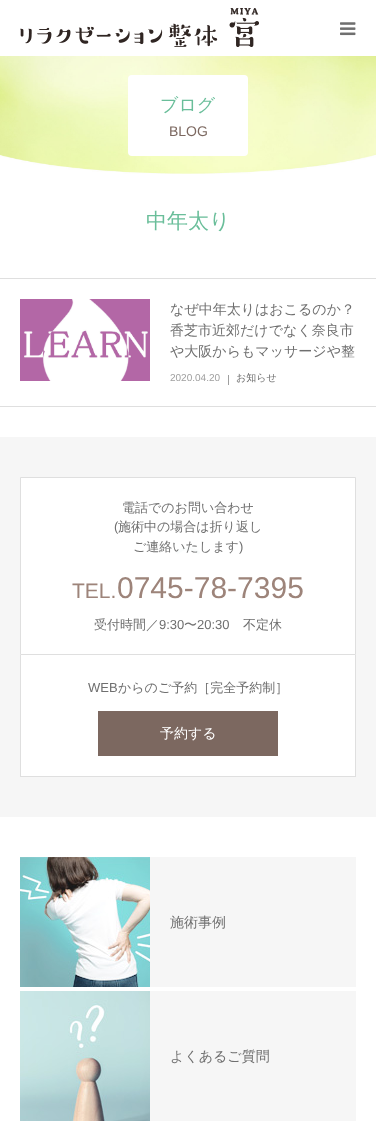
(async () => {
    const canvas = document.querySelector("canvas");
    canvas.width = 376;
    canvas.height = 1130;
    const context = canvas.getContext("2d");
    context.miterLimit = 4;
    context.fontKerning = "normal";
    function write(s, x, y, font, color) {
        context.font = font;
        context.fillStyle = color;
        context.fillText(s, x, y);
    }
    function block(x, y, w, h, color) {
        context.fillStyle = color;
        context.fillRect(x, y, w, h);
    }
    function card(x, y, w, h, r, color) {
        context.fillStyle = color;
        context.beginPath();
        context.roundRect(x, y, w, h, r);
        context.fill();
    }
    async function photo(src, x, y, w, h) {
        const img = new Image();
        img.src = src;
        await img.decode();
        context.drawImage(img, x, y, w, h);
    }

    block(0, 0, 376, 1130, "rgb(255, 255, 255)");
    await photo("media/1.png", 20, 8, 239, 39);
    await photo("media/2.png", 340, 22, 16, 14);
    await photo("media/3.png", 0, 56, 376, 118);
    card(128, 75, 120, 81, 4, "rgb(255, 255, 255)");
    write("ブログ", 160, 111, "500 18px WenQuanYi Zen Hei", "rgb(106, 190, 154)");
    write("BLOG", 169, 136, "14px Liberation Sans", "rgb(124, 104, 96)");
    write("中年太り", 146, 228, "500 21px WenQuanYi Zen Hei", "rgb(106, 190, 154)");
    block(0, 278, 376, 1, "rgb(223, 223, 223)");
    block(0, 406, 376, 1, "rgb(223, 223, 223)");
    await photo("media/4.png", 20, 299, 130, 82);
    write("なぜ中年太りはおこるのか？", 170, 314, "500 14px WenQuanYi Zen Hei", "rgb(111, 111, 111)");
    write("香芝市近郊だけでなく奈良市", 170, 335, "500 14px WenQuanYi Zen Hei", "rgb(111, 111, 111)");
    write("や大阪からもマッサージや整", 170, 356, "500 14px WenQuanYi Zen Hei", "rgb(111, 111, 111)");
    write("2020.04.20", 170, 381, "10px Liberation Sans", "rgb(159, 159, 159)");
    block(228, 375, 1, 10, "rgb(159, 159, 159)");
    write("お知らせ", 236, 381, "500 10px WenQuanYi Zen Hei", "rgb(111, 111, 111)");
    block(0, 437, 376, 380, "rgb(246, 246, 246)");
    context.fillStyle = "rgb(255, 255, 255)";
    context.beginPath();
    context.rect(20.5, 477.5, 335, 177);
    context.fill();
    context.strokeStyle = "rgb(223, 223, 223)";
    context.stroke();
    write("電話でのお問い合わせ", 122, 512, "500 13px WenQuanYi Zen Hei", "rgb(111, 111, 111)");
    write("(", 114, 531, "13px Liberation Sans", "rgb(111, 111, 111)");
    write("施術中の場合は折り返し", 118, 531, "500 13px WenQuanYi Zen Hei", "rgb(111, 111, 111)");
    write("ご連絡いたします", 133, 551, "500 13px WenQuanYi Zen Hei", "rgb(111, 111, 111)");
    write(")", 239, 551, "13px Liberation Sans", "rgb(111, 111, 111)");
    write("TEL.", 72, 598, "21px Liberation Sans", "rgb(157, 132, 122)");
    write("0745-78-7395", 117, 598, "30px Liberation Sans", "rgb(157, 132, 122)");
    write("受付時間／", 94, 629, "500 13px WenQuanYi Zen Hei", "rgb(111, 111, 111)");
    write("9:30", 159, 629, "13px Liberation Sans", "rgb(111, 111, 111)");
    write("〜", 184, 629, "500 13px WenQuanYi Zen Hei", "rgb(111, 111, 111)");
    write("20:30", 197, 629, "13px Liberation Sans", "rgb(111, 111, 111)");
    write("不定休", 243, 629, "500 13px WenQuanYi Zen Hei", "rgb(111, 111, 111)");
    block(21, 655, 334, 121, "rgb(255, 255, 255)");
    block(355, 655, 1, 122, "rgb(223, 223, 223)");
    block(20, 776, 336, 1, "rgb(223, 223, 223)");
    block(20, 655, 1, 122, "rgb(223, 223, 223)");
    write("WEB", 88, 692, "13px Liberation Sans", "rgb(111, 111, 111)");
    write("からのご予約［完全予約制］", 118, 692, "500 13px WenQuanYi Zen Hei", "rgb(111, 111, 111)");
    block(98, 711, 180, 45, "rgb(124, 104, 96)");
    write("予約する", 160, 738, "500 14px WenQuanYi Zen Hei", "rgb(255, 255, 255)");
    block(150, 857, 206, 130, "rgb(246, 246, 246)");
    await photo("media/5.png", 20, 857, 130, 130);
    write("施術事例", 170, 927, "500 14px WenQuanYi Zen Hei", "rgb(111, 111, 111)");
    block(150, 991, 206, 130, "rgb(246, 246, 246)");
    await photo("media/6.png", 20, 991, 130, 130);
    write("よくあるご質問", 170, 1061, "500 14px WenQuanYi Zen Hei", "rgb(111, 111, 111)");
    context.beginPath();
    context.moveTo(176.5, 553.5);
    context.bezierCurveTo(182.5, 547, 193.5, 547, 199.5, 553.5);
    context.strokeStyle = "rgba(176, 207, 210, 0.06)";
    context.lineWidth = 3;
    context.stroke();
})();
